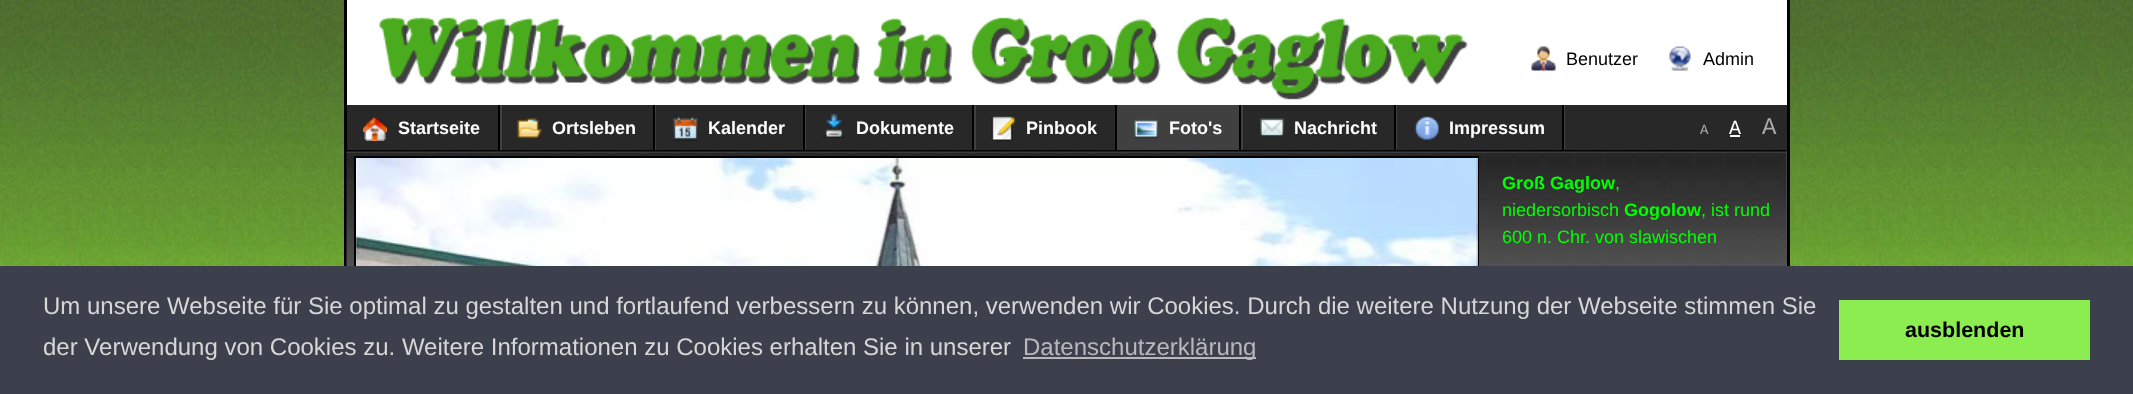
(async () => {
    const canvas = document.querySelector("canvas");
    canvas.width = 2133;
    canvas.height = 394;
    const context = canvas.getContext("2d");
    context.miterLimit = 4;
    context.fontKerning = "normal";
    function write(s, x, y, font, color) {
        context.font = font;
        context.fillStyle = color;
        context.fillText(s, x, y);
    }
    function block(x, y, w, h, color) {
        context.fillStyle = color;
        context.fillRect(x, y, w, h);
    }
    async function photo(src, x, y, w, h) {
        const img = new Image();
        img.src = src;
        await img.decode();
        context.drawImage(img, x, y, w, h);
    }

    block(0, 0, 2133, 394, "rgb(255, 255, 255)");
    await photo("media/1.png", 0, 0, 2133, 266);
    block(347, 0, 1440, 105, "rgb(255, 255, 255)");
    block(1787, 0, 3, 266, "rgb(0, 0, 0)");
    block(344, 0, 3, 266, "rgb(0, 0, 0)");
    await photo("media/2.png", 379, 17, 1089, 83);
    await photo("media/3.png", 1531, 46, 25, 25);
    write("Benutzer", 1566, 65, "18px Liberation Sans", "rgb(0, 0, 0)");
    await photo("media/4.png", 1669, 46, 22, 25);
    write("Admin", 1703, 65, "18px Liberation Sans", "rgb(0, 0, 0)");
    block(347, 105, 1440, 45, "rgb(40, 40, 40)");
    block(500, 105, 2, 45, "rgb(64, 64, 64)");
    block(498, 105, 2, 45, "rgb(0, 0, 0)");
    await photo("media/5.png", 363, 116, 24, 25);
    write("Startseite", 398, 134, "bold 18px Liberation Sans", "rgb(255, 255, 255)");
    block(655, 105, 1, 45, "rgb(64, 64, 64)");
    block(653, 105, 2, 45, "rgb(0, 0, 0)");
    await photo("media/6.png", 517, 118, 25, 21);
    write("Ortsleben", 552, 134, "bold 18px Liberation Sans", "rgb(255, 255, 255)");
    block(805, 105, 1, 45, "rgb(64, 64, 64)");
    block(803, 105, 2, 45, "rgb(0, 0, 0)");
    await photo("media/7.png", 673, 116, 25, 25);
    write("Kalender", 708, 134, "bold 18px Liberation Sans", "rgb(255, 255, 255)");
    block(974, 105, 2, 45, "rgb(64, 64, 64)");
    block(972, 105, 2, 45, "rgb(0, 0, 0)");
    await photo("media/8.png", 823, 114, 22, 24);
    write("Dokumente", 856, 134, "bold 18px Liberation Sans", "rgb(255, 255, 255)");
    block(1117, 105, 122, 45, "rgb(64, 64, 64)");
    block(1115, 105, 2, 45, "rgb(0, 0, 0)");
    await photo("media/9.png", 991, 116, 25, 25);
    write("Pinbook", 1026, 134, "bold 18px Liberation Sans", "rgb(255, 255, 255)");
    block(1241, 105, 2, 45, "rgb(64, 64, 64)");
    block(1239, 105, 2, 45, "rgb(0, 0, 0)");
    await photo("media/10.png", 1134, 119, 24, 20);
    write("Foto's", 1169, 134, "bold 18px Liberation Sans", "rgb(255, 255, 255)");
    block(1396, 105, 1, 45, "rgb(64, 64, 64)");
    block(1394, 105, 2, 45, "rgb(0, 0, 0)");
    await photo("media/11.png", 1260, 118, 24, 19);
    write("Nachricht", 1294, 134, "bold 18px Liberation Sans", "rgb(255, 255, 255)");
    block(1564, 105, 1, 45, "rgb(64, 64, 64)");
    block(1562, 105, 2, 45, "rgb(0, 0, 0)");
    await photo("media/12.png", 1414, 116, 25, 24);
    write("Impressum", 1449, 134, "bold 18px Liberation Sans", "rgb(255, 255, 255)");
    write("A", 1700, 134, "14px Liberation Mono", "rgb(170, 170, 170)");
    write("A", 1729, 134, "20px Liberation Mono", "rgb(255, 255, 255)");
    block(1730, 135, 10, 2, "rgb(255, 255, 255)");
    write("A", 1762, 134, "24px Liberation Mono", "rgb(170, 170, 170)");
    block(1786, 150, 1, 116, "rgb(89, 89, 89)");
    await photo("media/13.png", 346, 150, 1441, 116);
    context.strokeStyle = "rgb(0, 0, 0)";
    context.lineWidth = 2;
    context.strokeRect(355, 157, 1123, 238);
    await photo("media/15.png", 1476, 158, 2, 108);
    await photo("media/16.png", 1476, 158, 2, 108);
    await photo("media/17.png", 1476, 158, 2, 108);
    await photo("media/18.png", 1476, 158, 2, 108);
    await photo("media/19.png", 1476, 158, 2, 108);
    await photo("media/20.png", 1476, 158, 2, 108);
    await photo("media/21.png", 1476, 158, 2, 108);
    await photo("media/22.png", 1476, 158, 2, 108);
    await photo("media/14.png", 356, 158, 1122, 108);
    write("Groß Gaglow", 1502, 189, "bold 18px Liberation Sans", "rgb(0, 255, 0)");
    write(",", 1615, 189, "18px Liberation Sans", "rgb(0, 255, 0)");
    write("niedersorbisch", 1502, 216, "18px Liberation Sans", "rgb(0, 255, 0)");
    write("Gogolow", 1624, 216, "bold 18px Liberation Sans", "rgb(0, 255, 0)");
    write(", ist rund", 1701, 216, "18px Liberation Sans", "rgb(0, 255, 0)");
    write("600 n. Chr. von slawischen", 1502, 243, "18px Liberation Sans", "rgb(0, 255, 0)");
    block(0, 266, 2133, 128, "rgb(60, 64, 77)");
    write("Um unsere Webseite für Sie optimal zu gestalten und fortlaufend verbessern zu können, verwenden wir Cookies. Durch die weitere Nutzung der Webseite stimmen Sie", 43, 314, "24px Liberation Sans", "rgb(214, 214, 214)");
    write("der Verwendung von Cookies zu. Weitere Informationen zu Cookies erhalten Sie in unserer", 43, 355, "24px Liberation Sans", "rgb(214, 214, 214)");
    block(1023, 357, 233, 2, "rgb(183, 184, 187)");
    write("Datenschutzerklärung", 1023, 355, "24px Liberation Sans", "rgb(183, 184, 187)");
    block(1839, 300, 251, 60, "rgb(139, 237, 79)");
    write("ausblenden", 1905, 337, "bold 21.5px Liberation Sans", "rgb(0, 0, 0)");
})();
